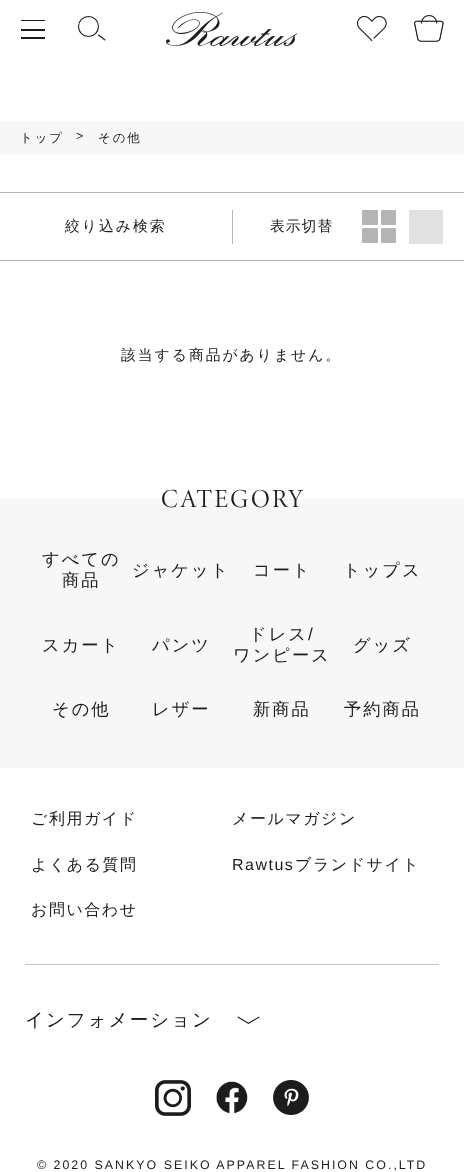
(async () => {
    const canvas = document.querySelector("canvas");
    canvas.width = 464;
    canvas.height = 1172;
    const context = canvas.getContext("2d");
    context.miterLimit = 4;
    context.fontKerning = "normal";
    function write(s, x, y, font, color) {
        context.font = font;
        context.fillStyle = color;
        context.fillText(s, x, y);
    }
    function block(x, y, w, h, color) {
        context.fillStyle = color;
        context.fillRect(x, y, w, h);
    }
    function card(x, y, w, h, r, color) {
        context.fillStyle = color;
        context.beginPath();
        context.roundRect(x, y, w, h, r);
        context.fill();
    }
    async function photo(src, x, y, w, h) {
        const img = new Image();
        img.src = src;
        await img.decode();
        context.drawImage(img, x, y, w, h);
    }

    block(0, 0, 464, 1172, "rgb(255, 255, 255)");
    block(21, 20, 24, 1, "rgb(28, 28, 28)");
    block(21, 29, 24, 2, "rgb(28, 28, 28)");
    block(21, 37, 24, 2, "rgb(28, 28, 28)");
    context.beginPath();
    context.arc(88.5, 26.5, 10, 0, Math.PI * 2);
    context.strokeStyle = "rgb(28, 28, 28)";
    context.lineWidth = 1.1;
    context.stroke();
    context.beginPath();
    context.moveTo(98.5, 35);
    context.lineTo(105, 40);
    context.lineCap = "round";
    context.stroke();
    await photo("media/1.png", 166, 12, 131, 34);
    await photo("media/2.png", 356, 15, 31, 27);
    await photo("media/3.png", 414, 15, 30, 27);
    block(0, 121, 464, 34, "rgb(247, 247, 247)");
    context.letterSpacing = "2px";
    write("トップ", 20, 142, "500 12.4px WenQuanYi Zen Hei", "rgb(28, 28, 28)");
    write(">", 76, 140, "12.4px Liberation Sans", "rgb(28, 28, 28)");
    write("その他", 98, 142, "500 12.4px WenQuanYi Zen Hei", "rgb(28, 28, 28)");
    block(0, 192, 464, 1, "rgb(180, 180, 180)");
    block(0, 260, 464, 1, "rgb(180, 180, 180)");
    write("絞り込み検索", 65, 231, "500 14.8px WenQuanYi Zen Hei", "rgb(28, 28, 28)");
    block(232, 210, 1, 34, "rgb(180, 180, 180)");
    context.letterSpacing = "1px";
    write("表示切替", 270, 231, "500 14.8px WenQuanYi Zen Hei", "rgb(28, 28, 28)");
    card(362, 210, 16, 15, 1, "rgb(180, 180, 180)");
    card(381, 210, 15, 15, 1, "rgb(180, 180, 180)");
    card(362, 228, 16, 15, 1, "rgb(180, 180, 180)");
    card(381, 228, 15, 15, 1, "rgb(180, 180, 180)");
    card(409, 210, 34, 34, 1, "rgb(225, 225, 225)");
    context.letterSpacing = "2px";
    write("該当する商品がありません。", 121, 360, "500 14.8px WenQuanYi Zen Hei", "rgb(28, 28, 28)");
    block(0, 499, 464, 269, "rgb(247, 247, 247)");
    write("CATEGORY", 161, 507, "26px 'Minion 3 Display'", "rgb(28, 28, 28)");
    write("すべての", 42, 565, "500 17.25px WenQuanYi Zen Hei", "rgb(28, 28, 28)");
    write("商品", 62, 586, "500 17.25px WenQuanYi Zen Hei", "rgb(28, 28, 28)");
    write("ジャケット", 132, 576, "500 17.25px WenQuanYi Zen Hei", "rgb(28, 28, 28)");
    write("コート", 253, 576, "500 17.25px WenQuanYi Zen Hei", "rgb(28, 28, 28)");
    write("トップス", 343, 576, "500 17.25px WenQuanYi Zen Hei", "rgb(28, 28, 28)");
    write("スカート", 42, 651, "500 17.25px WenQuanYi Zen Hei", "rgb(28, 28, 28)");
    write("パンツ", 152, 651, "500 17.25px WenQuanYi Zen Hei", "rgb(28, 28, 28)");
    write("ドレス", 249, 640, "500 17.25px WenQuanYi Zen Hei", "rgb(28, 28, 28)");
    write("/", 308, 640, "17.25px Liberation Sans", "rgb(28, 28, 28)");
    write("ワンピース", 233, 661, "500 17.25px WenQuanYi Zen Hei", "rgb(28, 28, 28)");
    write("グッズ", 353, 651, "500 17.25px WenQuanYi Zen Hei", "rgb(28, 28, 28)");
    write("その他", 52, 715, "500 17.25px WenQuanYi Zen Hei", "rgb(28, 28, 28)");
    write("レザー", 152, 715, "500 17.25px WenQuanYi Zen Hei", "rgb(28, 28, 28)");
    write("新商品", 253, 715, "500 17.25px WenQuanYi Zen Hei", "rgb(28, 28, 28)");
    write("予約商品", 344, 715, "500 17.25px WenQuanYi Zen Hei", "rgb(28, 28, 28)");
    block(25, 964, 414, 1, "rgb(195, 195, 195)");
    context.letterSpacing = "1.5px";
    write("ご利用ガイド", 31, 824, "500 16px WenQuanYi Zen Hei", "rgb(28, 28, 28)");
    write("メールマガジン", 232, 824, "500 16px WenQuanYi Zen Hei", "rgb(28, 28, 28)");
    write("よくある質問", 31, 870, "500 16px WenQuanYi Zen Hei", "rgb(28, 28, 28)");
    write("Rawtus", 232, 870, "16px Liberation Sans", "rgb(28, 28, 28)");
    write("ブランドサイト", 295, 870, "500 16px WenQuanYi Zen Hei", "rgb(28, 28, 28)");
    write("お問い合わせ", 31, 915, "500 16px WenQuanYi Zen Hei", "rgb(28, 28, 28)");
    context.letterSpacing = "2px";
    write("インフォメーション", 25, 1026, "500 18.5px WenQuanYi Zen Hei", "rgb(28, 28, 28)");
    context.beginPath();
    context.moveTo(238, 1016.5);
    context.lineTo(249, 1023);
    context.lineTo(248.5, 1024);
    context.lineTo(237.5, 1017.5);
    context.closePath();
    context.fill();
    context.beginPath();
    context.moveTo(248, 1023);
    context.lineTo(259, 1016.5);
    context.lineTo(259.5, 1017.5);
    context.lineTo(248.5, 1024);
    context.closePath();
    context.fill();
    await photo("media/4.png", 155, 1080, 36, 36);
    await photo("media/5.png", 216, 1081, 32, 33);
    await photo("media/6.png", 273, 1080, 36, 35);
    write("© 2020 SANKYO SEIKO APPAREL FASHION CO.,LTD", 37, 1169, "12.4px Liberation Sans", "rgb(28, 28, 28)");
})();
